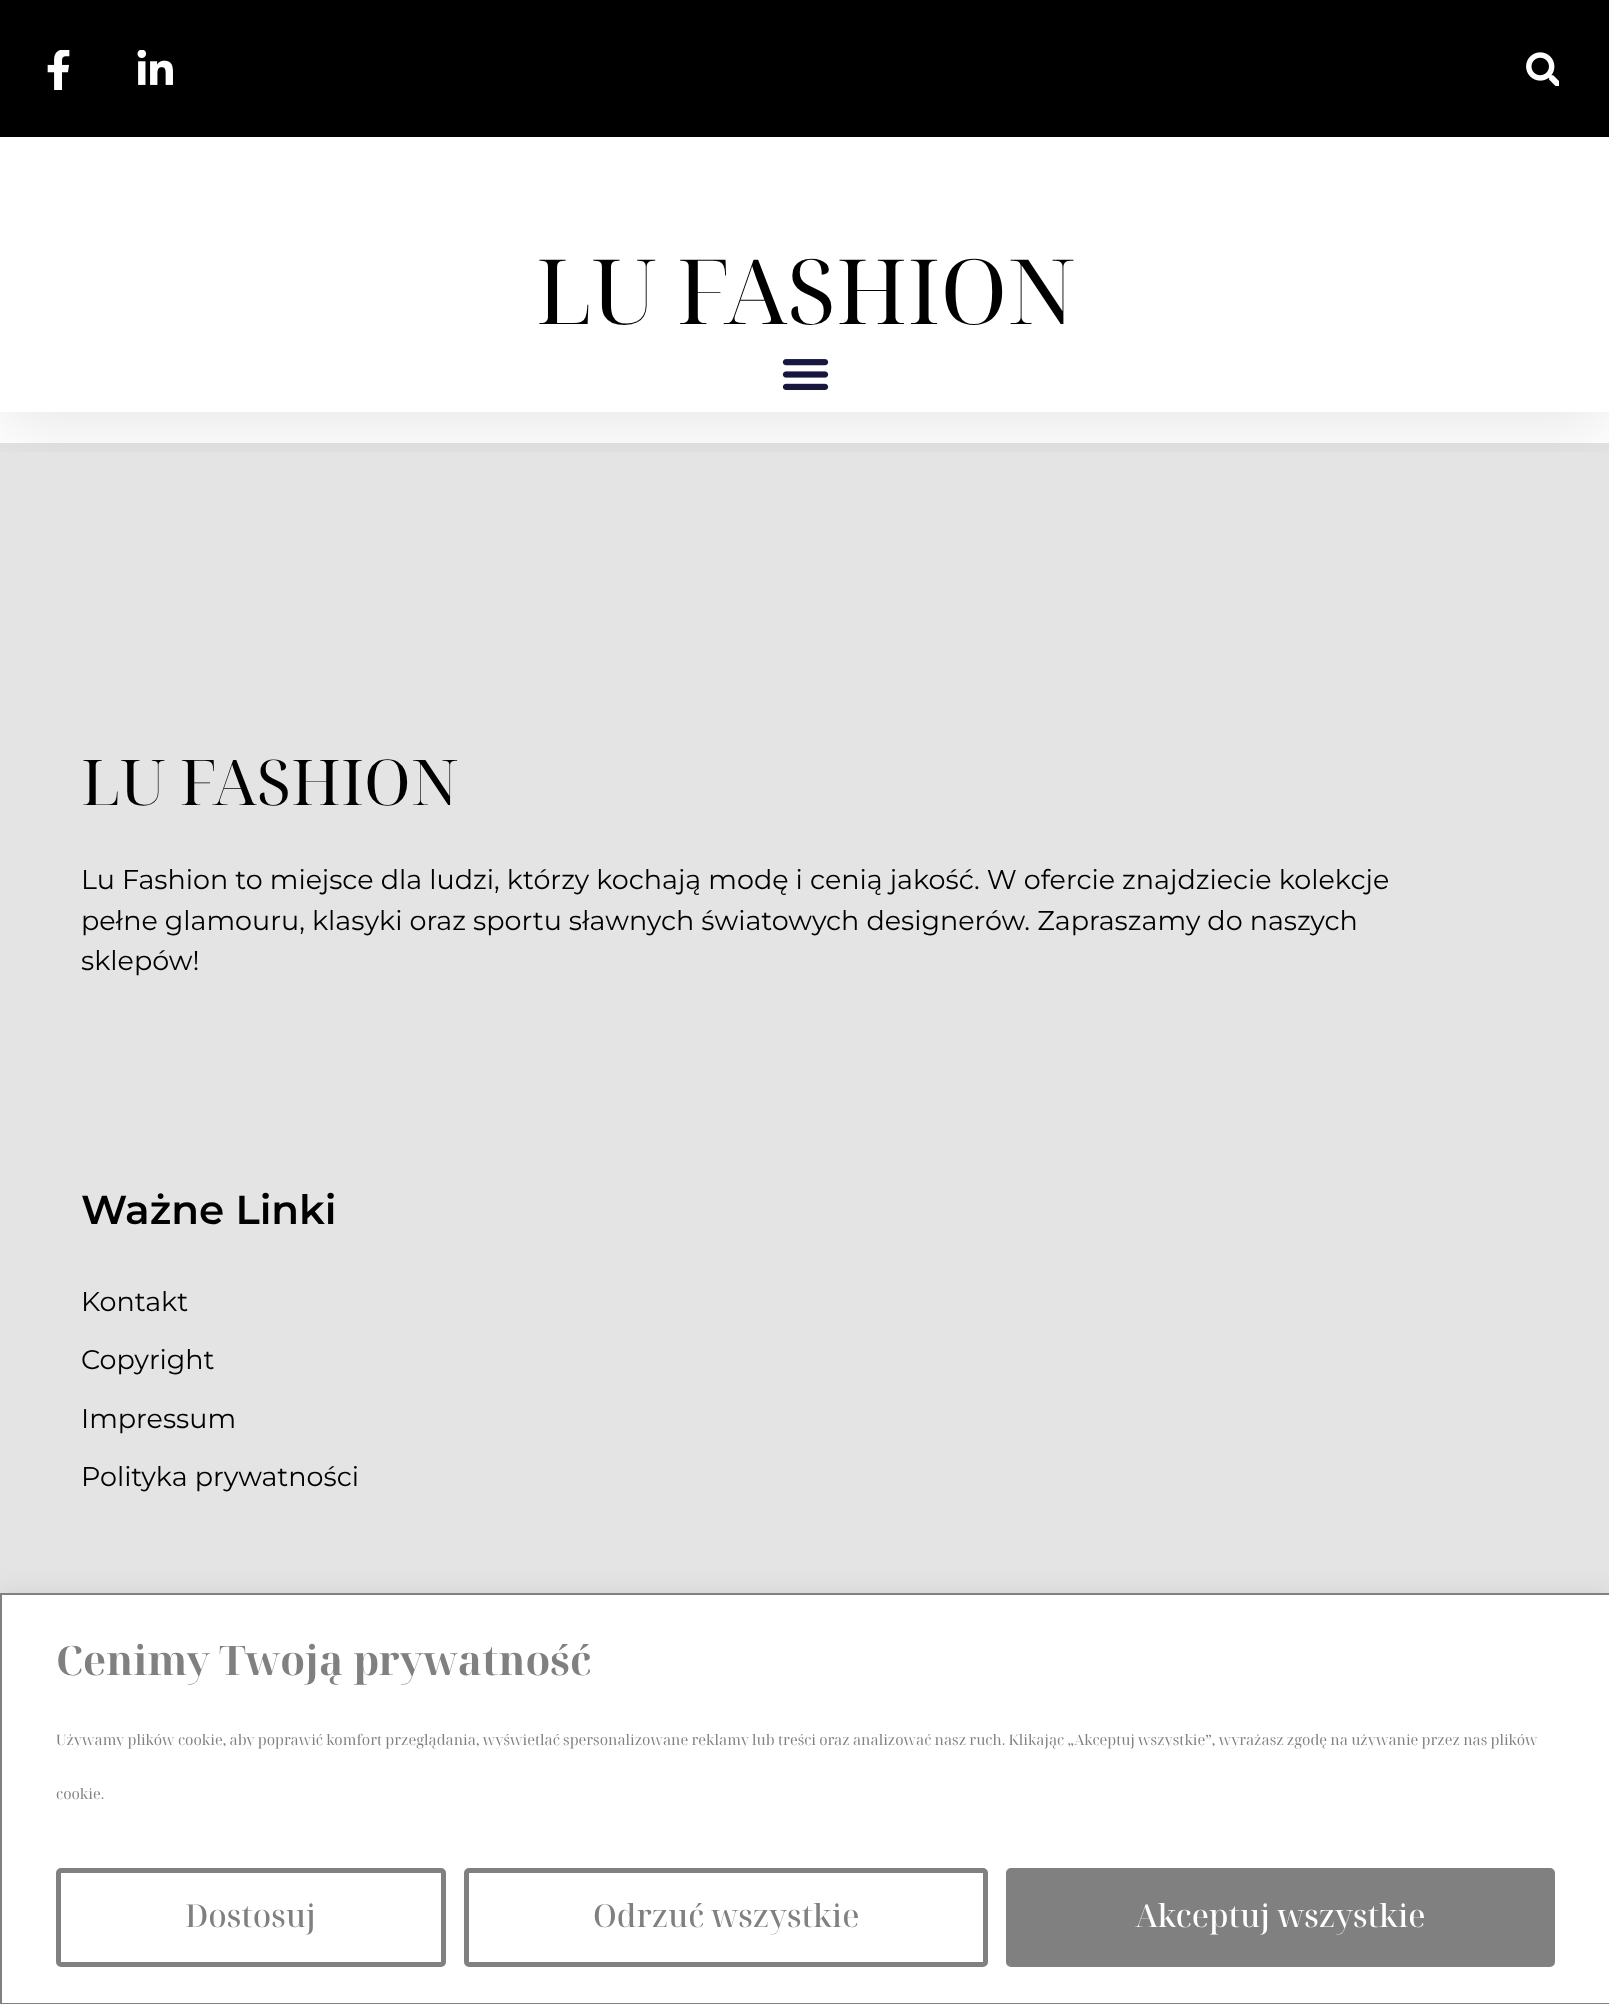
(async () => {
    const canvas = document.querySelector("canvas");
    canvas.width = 1609;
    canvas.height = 2004;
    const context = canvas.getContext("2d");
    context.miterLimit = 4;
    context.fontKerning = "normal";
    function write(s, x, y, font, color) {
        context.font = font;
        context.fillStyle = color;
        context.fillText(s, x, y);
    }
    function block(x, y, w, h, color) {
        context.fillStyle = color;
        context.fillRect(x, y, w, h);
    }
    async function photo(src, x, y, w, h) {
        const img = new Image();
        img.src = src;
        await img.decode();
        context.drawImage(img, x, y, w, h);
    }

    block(0, 0, 1609, 2004, "rgb(255, 255, 255)");
    block(0, 443, 1609, 1150, "rgb(228, 228, 228)");
    context.save();
    context.beginPath();
    context.rect(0, 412, 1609, 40);
    context.clip();
    context.fillStyle = "rgba(0, 0, 0, 0.1)";
    context.filter = "blur(34px)";
    context.beginPath();
    context.rect(0, 11, 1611, 412);
    context.fill();
    context.filter = "none";
    context.restore();
    block(17, 411, 1577, 1, "rgba(255, 255, 255, 0.93)");
    block(0, 0, 1609, 137, "rgb(0, 0, 0)");
    await photo("media/1.png", 47, 50, 23, 40);
    await photo("media/2.png", 137, 50, 36, 35);
    await photo("media/3.png", 1526, 52, 33, 34);
    write("LU FASHION", 536, 324, "90px Noto Serif Display", "rgb(0, 0, 0)");
    await photo("media/4.png", 782, 359, 47, 31);
    write("LU FASHION", 81, 805, "63px Noto Serif Display", "rgb(0, 0, 0)");
    write("Lu Fashion to miejsce dla ludzi, którzy kochają modę i cenią jakość. W ofercie znajdziecie kolekcje", 81, 889, "27px Montserrat", "rgb(0, 0, 0)");
    write("pełne glamouru, klasyki oraz sportu sławnych światowych designerów. Zapraszamy do naszych", 81, 930, "27px Montserrat", "rgb(0, 0, 0)");
    write("sklepów!", 81, 970, "27px Montserrat", "rgb(0, 0, 0)");
    write("Ważne Linki", 81, 1224, "600 40.5px Montserrat", "rgb(0, 0, 0)");
    write("Kontakt", 81, 1311, "27px Montserrat", "rgb(0, 0, 0)");
    write("Copyright", 81, 1369, "27px Montserrat", "rgb(0, 0, 0)");
    write("Impressum", 81, 1428, "27px Montserrat", "rgb(0, 0, 0)");
    write("Polityka prywatności", 81, 1486, "27px Montserrat", "rgb(0, 0, 0)");
    context.fillStyle = "rgba(172, 171, 171, 0.3)";
    context.filter = "blur(11px)";
    context.beginPath();
    context.rect(0, 1591, 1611, 412);
    context.fill();
    context.filter = "none";
    context.fillStyle = "rgb(255, 255, 255)";
    context.beginPath();
    context.rect(1, 1594, 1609, 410);
    context.fill();
    context.strokeStyle = "rgb(128, 128, 128)";
    context.lineWidth = 2;
    context.stroke();
    write("Cenimy Twoją prywatność", 56, 1675, "bold 40.5px Noto Serif Display", "rgb(128, 128, 128)");
    write("Używamy plików cookie, aby poprawić komfort przeglądania, wyświetlać spersonalizowane reklamy lub treści oraz analizować nasz ruch. Klikając „Akceptuj wszystkie”, wyrażasz zgodę na używanie przez nas plików", 56, 1745, "14.5px Noto Serif Display", "rgb(128, 128, 128)");
    write("cookie.", 56, 1799, "14.5px Noto Serif Display", "rgb(128, 128, 128)");
    context.beginPath();
    context.roundRect(58.5, 1870.5, 385, 94, 2.5);
    context.lineWidth = 5;
    context.stroke();
    write("Dostosuj", 185, 1927, "500 31.5px Noto Serif Display", "rgb(128, 128, 128)");
    context.beginPath();
    context.roundRect(466.5, 1870.5, 519, 94, 2.5);
    context.stroke();
    write("Odrzuć wszystkie", 593, 1927, "500 31.5px Noto Serif Display", "rgb(128, 128, 128)");
    context.beginPath();
    context.roundRect(1008.5, 1870.5, 544, 94, 2.5);
    context.fill();
    context.stroke();
    write("Akceptuj wszystkie", 1135, 1927, "500 31.5px Noto Serif Display", "rgb(255, 255, 255)");
})();
